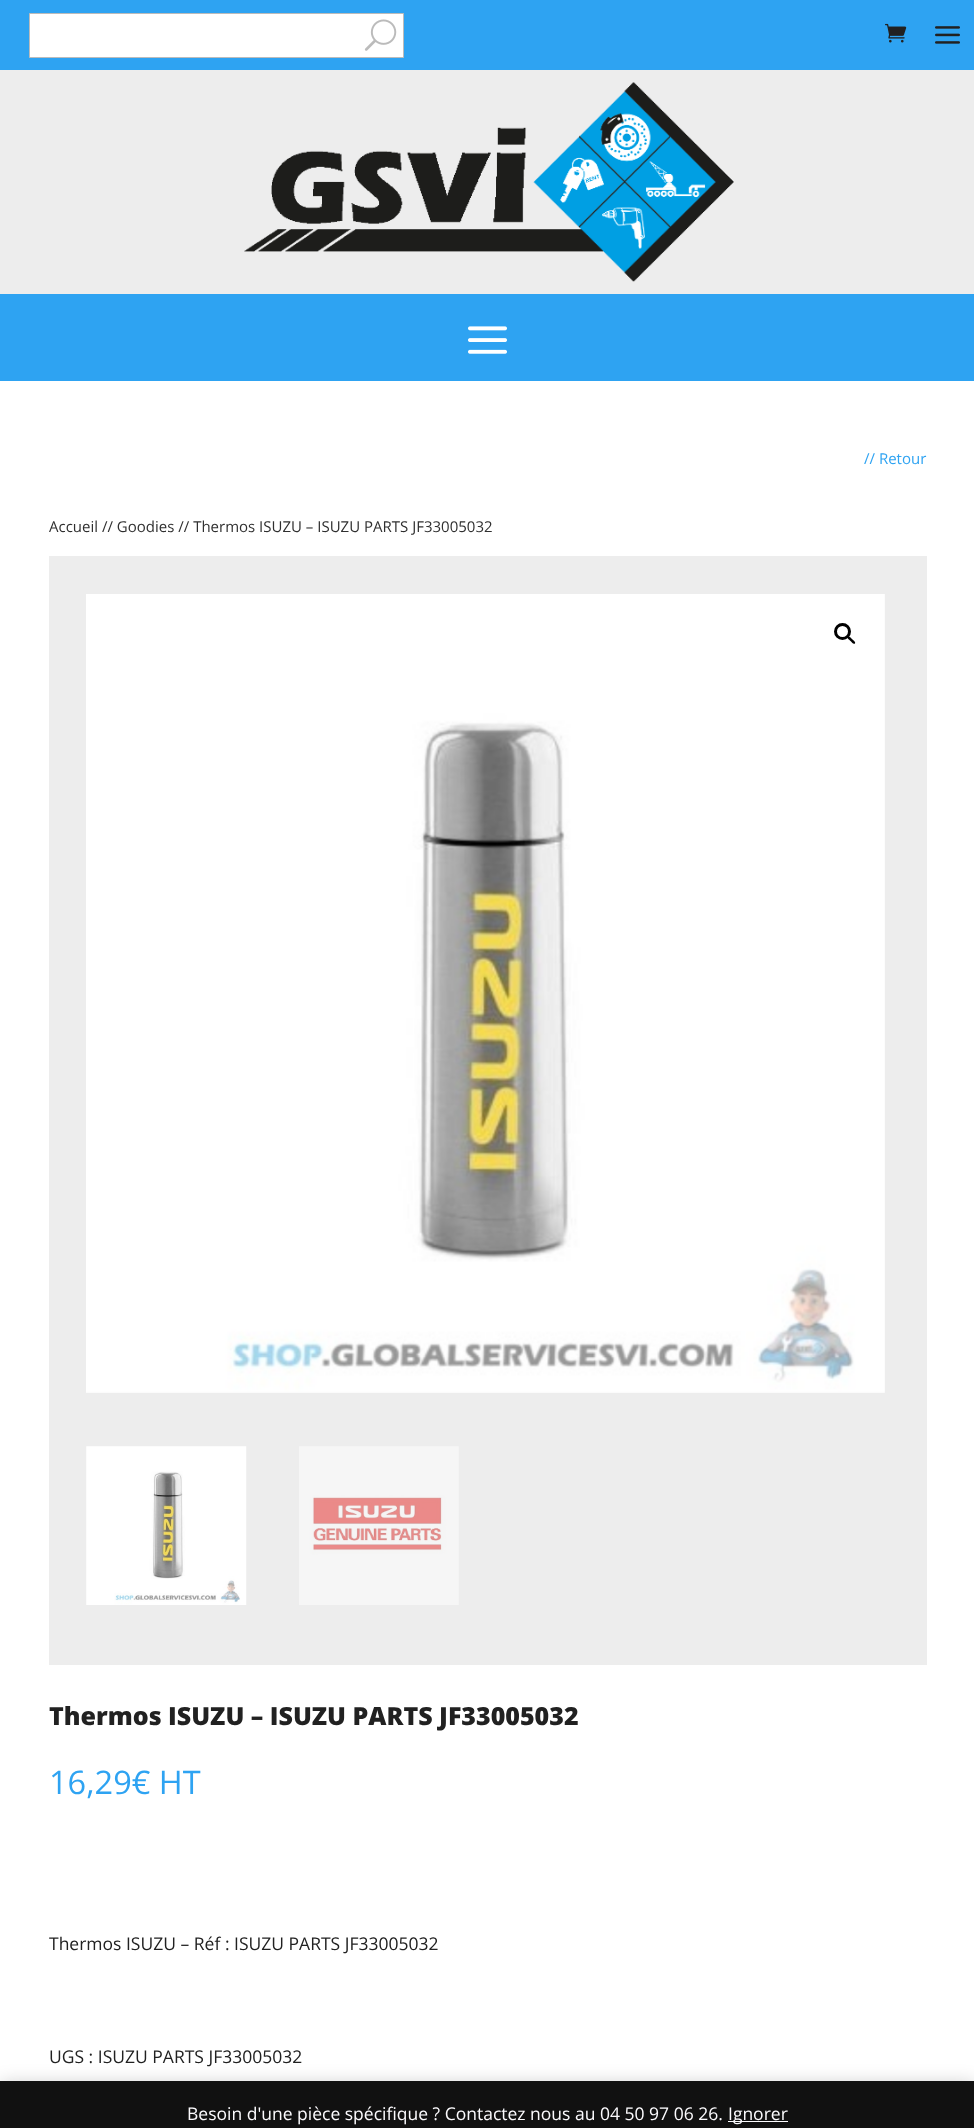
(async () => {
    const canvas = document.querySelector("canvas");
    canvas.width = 974;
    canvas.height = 2128;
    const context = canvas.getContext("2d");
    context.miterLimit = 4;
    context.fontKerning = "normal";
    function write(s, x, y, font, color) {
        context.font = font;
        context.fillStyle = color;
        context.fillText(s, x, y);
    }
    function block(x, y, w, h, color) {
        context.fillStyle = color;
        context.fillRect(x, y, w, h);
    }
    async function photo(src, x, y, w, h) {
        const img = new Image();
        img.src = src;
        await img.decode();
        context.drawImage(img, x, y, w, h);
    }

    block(0, 0, 974, 2128, "rgb(255, 255, 255)");
    block(0, 0, 974, 70, "rgb(46, 163, 242)");
    context.fillStyle = "rgb(255, 255, 255)";
    context.beginPath();
    context.rect(29.5, 13.5, 374, 44);
    context.fill();
    context.strokeStyle = "rgb(187, 187, 187)";
    context.stroke();
    await photo("media/1.png", 364, 19, 33, 32);
    await photo("media/2.png", 885, 23, 22, 20);
    await photo("media/3.png", 935, 26, 25, 18);
    block(0, 70, 974, 224, "rgb(237, 237, 237)");
    await photo("media/4.png", 244, 82, 490, 200);
    block(0, 294, 974, 87, "rgb(46, 163, 242)");
    await photo("media/5.png", 468, 326, 39, 28);
    write("// Retour", 864, 464, "15px Open Sans", "rgb(46, 163, 242)");
    write("Accueil // Goodies // Thermos ISUZU – ISUZU PARTS JF33005032", 49, 532, "15px Open Sans", "rgb(47, 47, 47)");
    block(49, 556, 878, 1109, "rgb(237, 237, 237)");
    await photo("media/6.png", 86, 594, 799, 799);
    context.beginPath();
    context.arc(842.5, 631.5, 7, 0, Math.PI * 2);
    context.strokeStyle = "rgb(0, 0, 0)";
    context.lineWidth = 3;
    context.stroke();
    context.fillStyle = "rgb(0, 0, 0)";
    context.beginPath();
    context.moveTo(847.5, 636.5);
    context.bezierCurveTo(849, 635, 851.5, 638.5, 852, 639);
    context.bezierCurveTo(853, 640, 856, 642, 855, 643.5);
    context.bezierCurveTo(853.5, 645, 851, 641.5, 850.5, 641);
    context.bezierCurveTo(849.5, 640, 846.5, 638, 847.5, 636.5);
    context.closePath();
    context.fill();
    await photo("media/7.png", 86, 1446, 161, 159);
    await photo("media/8.png", 299, 1446, 160, 159);
    write("Thermos ISUZU – ISUZU PARTS JF33005032", 49, 1725, "800 25px Open Sans", "rgb(33, 33, 33)");
    write("16,29€ HT", 49, 1794, "32.5px Open Sans", "rgb(46, 163, 242)");
    write("Thermos ISUZU – Réf : ISUZU PARTS JF33005032", 49, 1950, "17.5px Open Sans", "rgb(33, 33, 33)");
    write("UGS : ISUZU PARTS JF33005032", 49, 2063, "17.5px Open Sans", "rgb(33, 33, 33)");
    context.fillStyle = "rgba(0, 0, 0, 0.2)";
    context.filter = "blur(9px)";
    context.beginPath();
    context.rect(0, 2083, 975, 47);
    context.fill();
    context.filter = "none";
    block(0, 2081, 974, 47, "rgb(17, 17, 17)");
    write("Besoin d'une pièce spécifique ? Contactez nous au 04 50 97 06 26.", 187, 2120, "17.5px Open Sans", "rgb(252, 251, 254)");
    block(728, 2121, 60, 1, "rgb(252, 251, 254)");
    write("Ignorer", 728, 2120, "17.5px Open Sans", "rgb(252, 251, 254)");
})();
